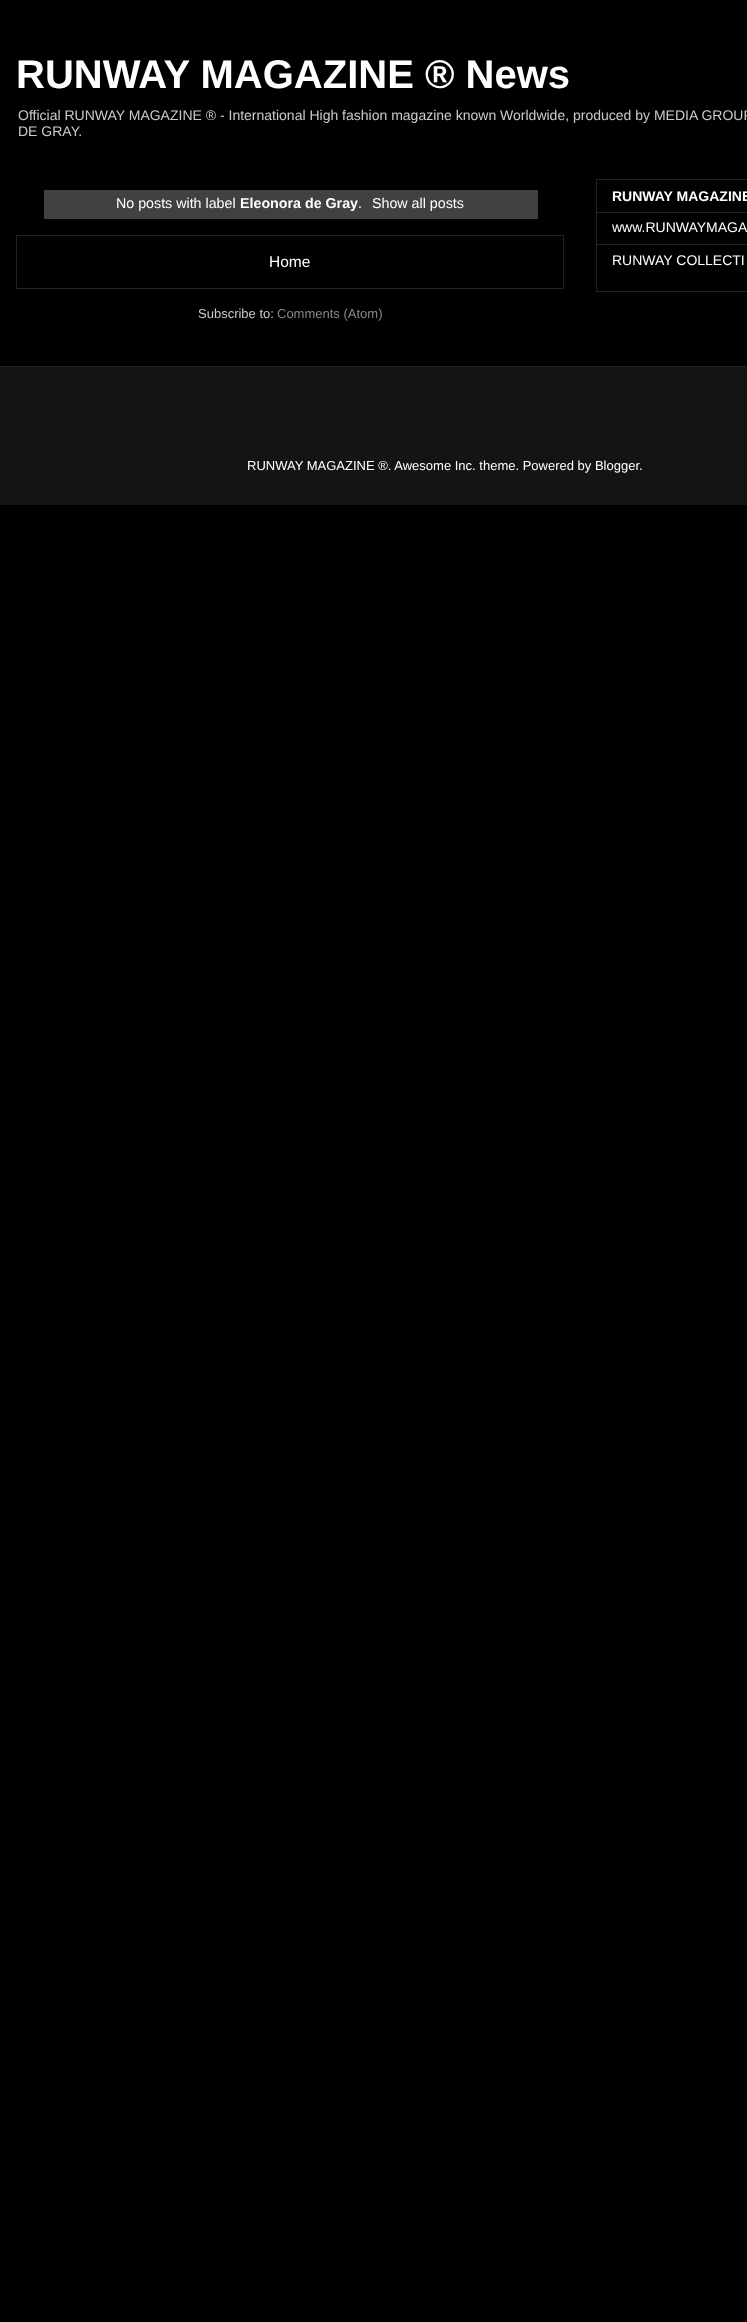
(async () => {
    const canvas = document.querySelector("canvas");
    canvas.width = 747;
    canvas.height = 2322;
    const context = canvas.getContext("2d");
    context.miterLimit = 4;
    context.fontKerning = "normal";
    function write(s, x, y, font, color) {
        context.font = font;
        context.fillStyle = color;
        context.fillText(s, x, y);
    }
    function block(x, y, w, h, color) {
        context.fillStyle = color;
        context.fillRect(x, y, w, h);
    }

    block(0, 0, 747, 2322, "rgb(0, 0, 0)");
    write("RUNWAY MAGAZINE ® News", 16, 88, "bold 40px Liberation Sans", "rgb(255, 255, 255)");
    write("Official RUNWAY MAGAZINE ® - International High fashion magazine known Worldwide, produced by MEDIA GROUP", 18, 120, "14px Liberation Sans", "rgb(204, 204, 204)");
    write("DE GRAY.", 18, 136, "14px Liberation Sans", "rgb(204, 204, 204)");
    block(44, 190, 494, 29, "rgb(65, 65, 65)");
    write("No posts with label", 116, 208, "14.25px Liberation Sans", "rgb(255, 255, 255)");
    write("Eleonora de Gray", 240, 208, "bold 14.25px Liberation Sans", "rgb(255, 255, 255)");
    write(".", 358, 208, "14.25px Liberation Sans", "rgb(255, 255, 255)");
    write("Show all posts", 372, 208, "14.25px Liberation Sans", "rgb(255, 255, 255)");
    context.strokeStyle = "rgb(34, 34, 34)";
    context.strokeRect(16.5, 235.5, 547, 53);
    write("Home", 269, 267, "15.5px Liberation Sans", "rgb(255, 255, 255)");
    write("Subscribe to:", 198, 318, "13px Liberation Sans", "rgb(204, 204, 204)");
    write("Comments (Atom)", 277, 318, "13px Liberation Sans", "rgb(136, 136, 136)");
    context.strokeRect(596.5, 179.5, 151, 112);
    write("RUNWAY MAGAZINE", 612, 201, "bold 14px Liberation Sans", "rgb(255, 255, 255)");
    block(597, 212, 150, 1, "rgb(34, 34, 34)");
    write("www.RUNWAYMAGA", 612, 232, "14px Liberation Sans", "rgb(255, 255, 255)");
    block(597, 244, 150, 1, "rgb(34, 34, 34)");
    write("RUNWAY COLLECTI", 612, 265, "14px Liberation Sans", "rgb(255, 255, 255)");
    block(0, 367, 747, 138, "rgb(20, 20, 20)");
    block(0, 366, 747, 1, "rgb(34, 34, 34)");
    write("RUNWAY MAGAZINE ®. Awesome Inc. theme. Powered by Blogger", 247, 470, "13px Liberation Sans", "rgb(255, 255, 255)");
    write(".", 639, 470, "13px Liberation Sans", "rgb(255, 255, 255)");
})();
